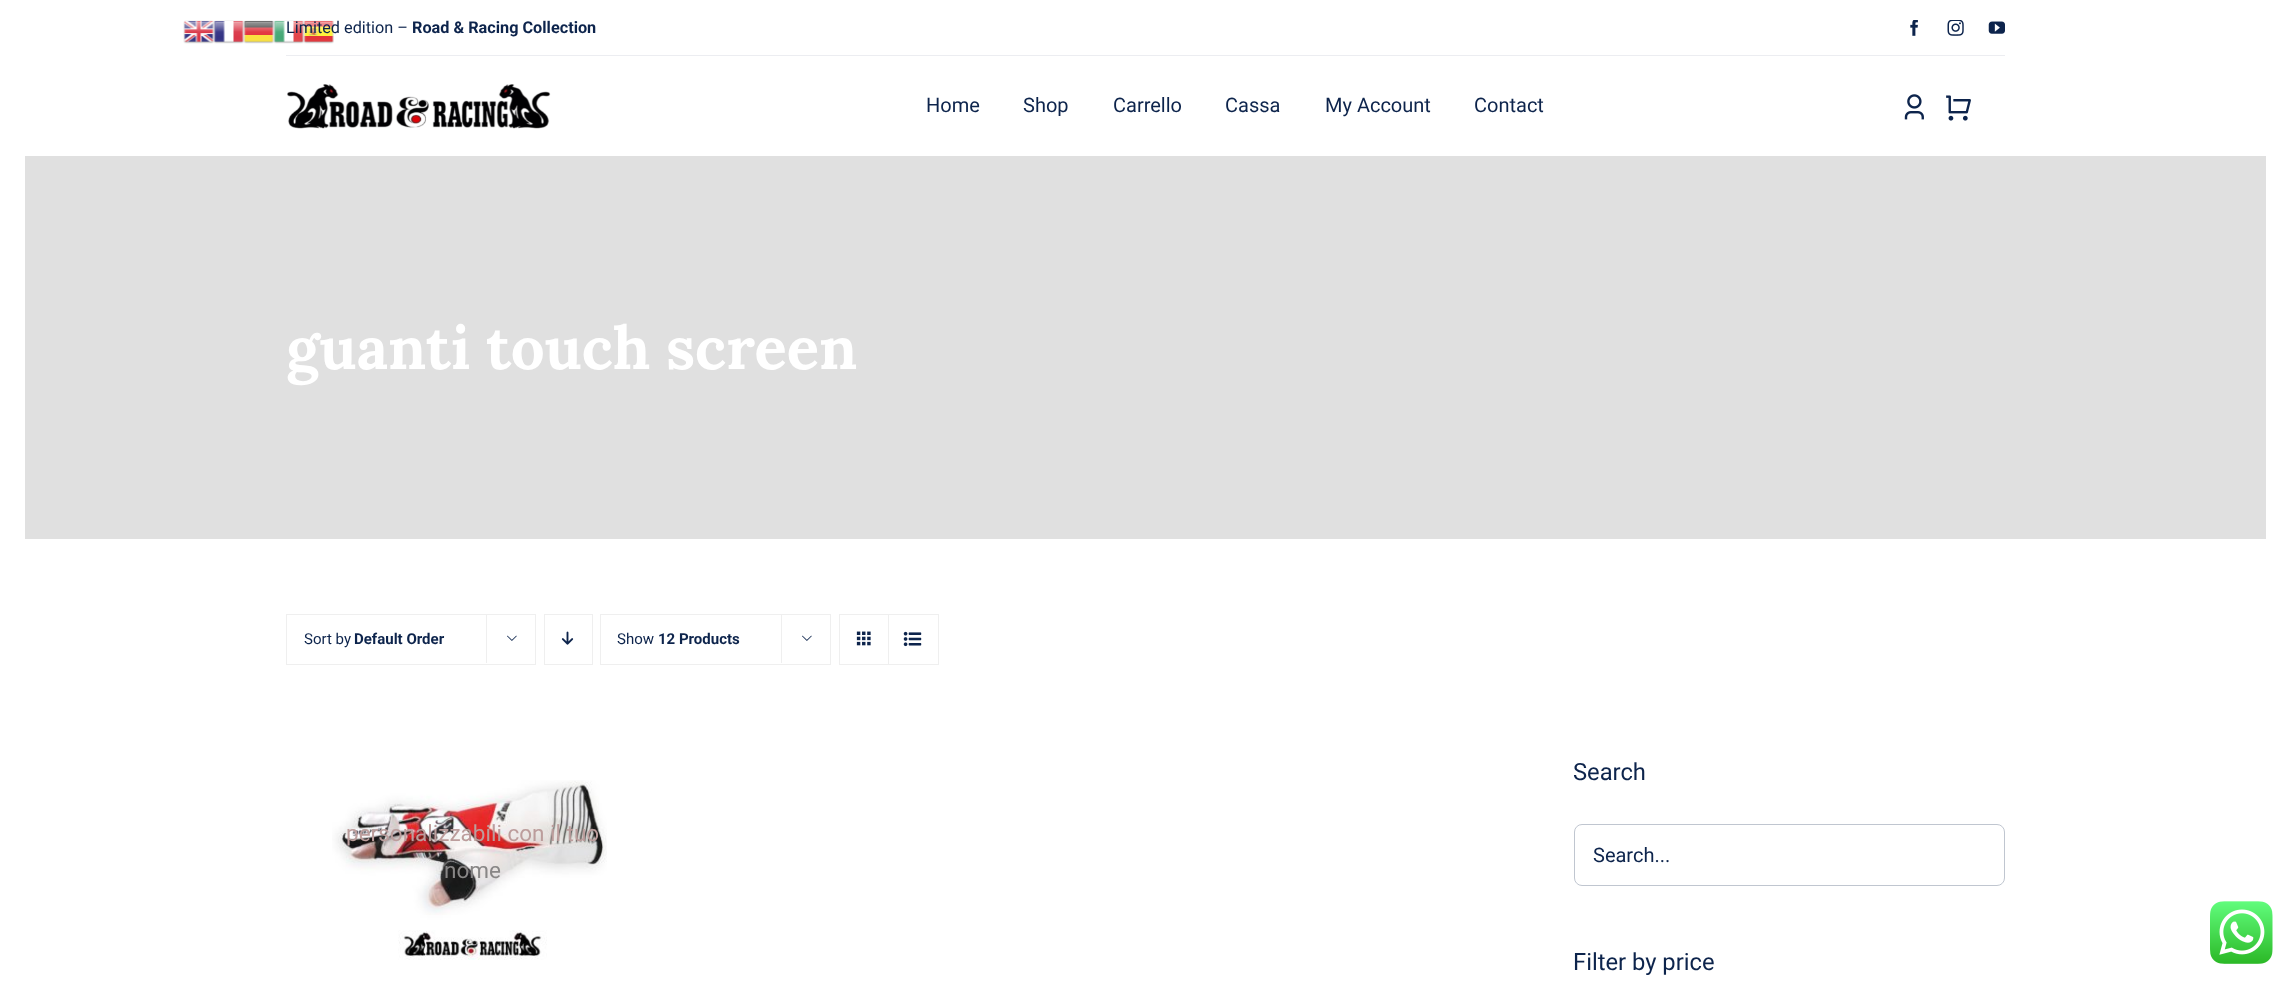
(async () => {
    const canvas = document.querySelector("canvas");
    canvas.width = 2291;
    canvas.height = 982;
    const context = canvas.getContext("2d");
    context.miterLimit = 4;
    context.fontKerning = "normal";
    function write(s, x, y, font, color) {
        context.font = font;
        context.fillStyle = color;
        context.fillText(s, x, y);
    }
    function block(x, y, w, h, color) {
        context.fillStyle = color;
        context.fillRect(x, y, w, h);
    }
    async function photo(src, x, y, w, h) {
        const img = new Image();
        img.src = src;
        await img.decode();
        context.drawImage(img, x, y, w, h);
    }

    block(0, 0, 2291, 982, "rgb(255, 255, 255)");
    await photo("media/1.png", 183, 20, 31, 24);
    await photo("media/2.png", 213, 20, 31, 24);
    await photo("media/3.png", 243, 20, 31, 24);
    await photo("media/4.png", 273, 20, 31, 24);
    await photo("media/5.png", 303, 20, 31, 24);
    await photo("media/6.png", 2210, 901, 63, 63);
    write("Limited edition –", 286, 33, "16.25px Roboto", "rgb(13, 36, 76)");
    write("Road & Racing Collection", 412, 33, "bold 16.25px Roboto", "rgb(13, 36, 76)");
    await photo("media/7.png", 1910, 20, 8, 16);
    await photo("media/8.png", 1947, 20, 17, 16);
    await photo("media/9.png", 1988, 21, 17, 13);
    block(286, 55, 1719, 1, "rgb(236, 237, 241)");
    await photo("media/10.png", 287, 84, 264, 45);
    write("Home", 926, 112, "20px Roboto", "rgb(13, 36, 76)");
    write("Shop", 1023, 112, "20px Roboto", "rgb(13, 36, 76)");
    write("Carrello", 1113, 112, "20px Roboto", "rgb(13, 36, 76)");
    write("Cassa", 1225, 112, "20px Roboto", "rgb(13, 36, 76)");
    write("My Account", 1325, 112, "20px Roboto", "rgb(13, 36, 76)");
    write("Contact", 1474, 112, "20px Roboto", "rgb(13, 36, 76)");
    await photo("media/11.png", 1904, 94, 20, 26);
    await photo("media/12.png", 1946, 95, 25, 26);
    block(25, 156, 2241, 383, "rgb(224, 224, 224)");
    write("guanti touch screen", 286, 369, "bold 60px Lora", "rgb(255, 255, 255)");
    context.strokeStyle = "rgb(239, 239, 239)";
    context.strokeRect(286.5, 614.5, 249, 50);
    write("Sort by", 304, 644, "15px Roboto", "rgb(13, 36, 76)");
    write("Default Order", 354, 644, "bold 15px Roboto", "rgb(13, 36, 76)");
    block(486, 614, 1, 49, "rgb(239, 239, 239)");
    await photo("media/13.png", 507, 635, 10, 6);
    context.strokeRect(544.5, 614.5, 48, 50);
    await photo("media/14.png", 561, 631, 13, 14);
    context.strokeRect(600.5, 614.5, 230, 50);
    write("Show", 617, 644, "15px Roboto", "rgb(13, 36, 76)");
    write("12 Products", 658, 644, "bold 15px Roboto", "rgb(13, 36, 76)");
    block(781, 614, 1, 49, "rgb(239, 239, 239)");
    await photo("media/13.png", 802, 635, 10, 6);
    context.strokeRect(839.5, 614.5, 99, 50);
    block(888, 615, 1, 49, "rgb(239, 239, 239)");
    await photo("media/15.png", 856, 631, 15, 15);
    await photo("media/16.png", 903, 631, 19, 16);
    await photo("media/17.png", 332, 780, 275, 180);
    write("personalizzabili con il tuo", 346, 841, "22.5px Roboto", "rgb(188, 157, 156)");
    write("nome", 444, 878, "22.5px Roboto", "rgb(136, 134, 134)");
    write("Search", 1573, 780, "23.75px Roboto", "rgb(13, 36, 76)");
    context.beginPath();
    context.roundRect(1574.5, 824.5, 430, 61, 7.5);
    context.strokeStyle = "rgb(192, 198, 208)";
    context.stroke();
    write("Search...", 1593, 862, "20px Roboto", "rgb(13, 36, 76)");
    write("Filter by price", 1573, 970, "23.75px Roboto", "rgb(13, 36, 76)");
})();
